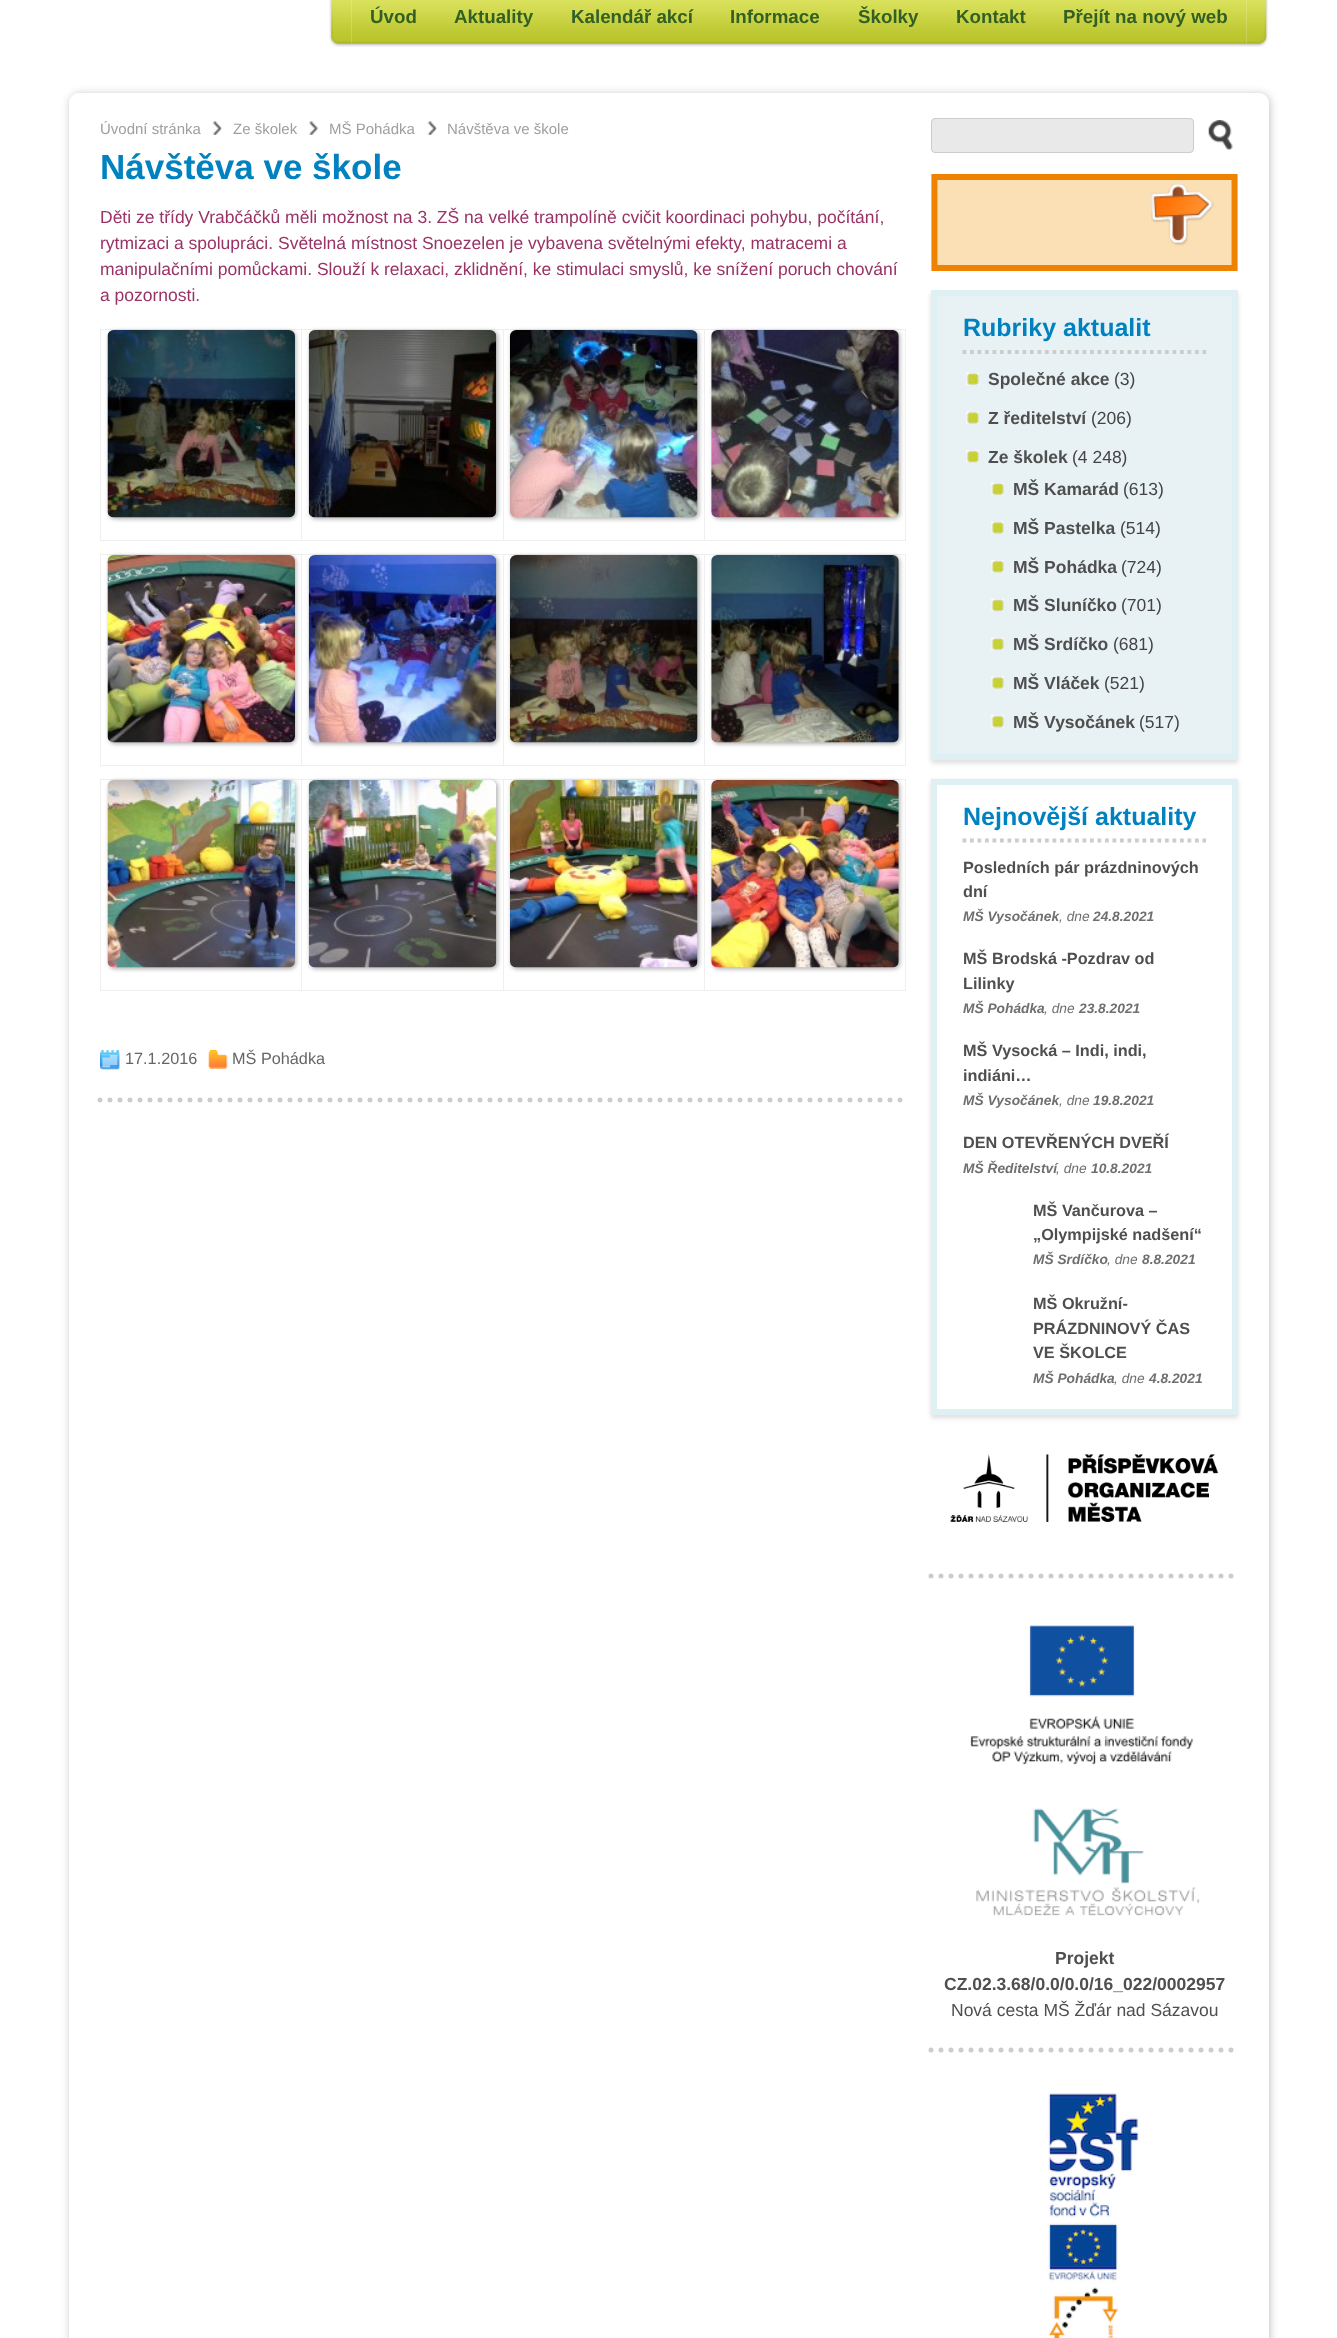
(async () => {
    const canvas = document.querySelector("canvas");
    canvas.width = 1337;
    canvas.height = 2338;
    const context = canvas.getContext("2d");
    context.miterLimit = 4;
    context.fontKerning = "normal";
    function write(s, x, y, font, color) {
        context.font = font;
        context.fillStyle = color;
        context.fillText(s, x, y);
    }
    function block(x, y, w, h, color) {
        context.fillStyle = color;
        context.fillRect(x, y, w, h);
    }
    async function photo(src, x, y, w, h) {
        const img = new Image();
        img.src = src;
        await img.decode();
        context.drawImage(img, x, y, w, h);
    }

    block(0, 0, 1337, 2338, "rgb(255, 255, 255)");
    await photo("media/1.png", 329, 0, 23, 47);
    await photo("media/2.png", 351, 0, 896, 47);
    write("Úvod", 370, 23, "bold 18.75px Liberation Sans", "rgb(50, 95, 35)");
    write("Aktuality", 454, 23, "bold 18.75px Liberation Sans", "rgb(50, 95, 35)");
    write("Kalendář akcí", 571, 23, "bold 18.75px Liberation Sans", "rgb(50, 95, 35)");
    write("Informace", 730, 23, "bold 18.75px Liberation Sans", "rgb(50, 95, 35)");
    write("Školky", 858, 23, "bold 18.75px Liberation Sans", "rgb(50, 95, 35)");
    write("Kontakt", 956, 23, "bold 18.75px Liberation Sans", "rgb(50, 95, 35)");
    write("Přejít na nový web", 1063, 23, "bold 18.75px Liberation Sans", "rgb(50, 95, 35)");
    await photo("media/3.png", 1246, 0, 22, 47);
    context.fillStyle = "rgba(102, 102, 102, 0.4)";
    context.filter = "blur(4px)";
    context.beginPath();
    context.roundRect(70, 94, 1200, 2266, 10);
    context.fill();
    context.filter = "none";
    context.fillStyle = "rgb(255, 255, 255)";
    context.beginPath();
    context.moveTo(79, 93);
    context.lineTo(1259, 93);
    context.bezierCurveTo(1264.5, 93, 1269, 97.5, 1269, 103);
    context.lineTo(1269, 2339);
    context.lineTo(69, 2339);
    context.lineTo(69, 103);
    context.bezierCurveTo(69, 97.5, 73.5, 93, 79, 93);
    context.closePath();
    context.fill();
    write("Úvodní stránka", 100, 134, "15px Liberation Sans", "rgb(159, 159, 159)");
    await photo("media/4.png", 212, 121, 10, 14);
    write("Ze školek", 233, 134, "15px Liberation Sans", "rgb(159, 159, 159)");
    await photo("media/5.png", 308, 121, 10, 14);
    write("MŠ Pohádka", 329, 134, "15px Liberation Sans", "rgb(159, 159, 159)");
    await photo("media/4.png", 427, 121, 10, 14);
    write("Návštěva ve škole", 447, 134, "15px Liberation Sans", "rgb(159, 159, 159)");
    write("Návštěva ve škole", 100, 179, "bold 35px Liberation Sans", "rgb(0, 130, 192)");
    write("Děti ze třídy Vrabčáčků měli možnost na 3. ZŠ na velké trampolíně cvičit koordinaci pohybu, počítání,", 100, 223, "17.5px Liberation Sans", "rgb(153, 51, 102)");
    write("rytmizaci a spolupráci. Světelná místnost Snoezelen je vybavena světelnými efekty, matracemi a", 100, 249, "17.5px Liberation Sans", "rgb(153, 51, 102)");
    write("manipulačními pomůckami. Slouží k relaxaci, zklidnění, ke stimulaci smyslů, ke snížení poruch chování", 100, 275, "17.5px Liberation Sans", "rgb(153, 51, 102)");
    write("a pozornosti.", 100, 301, "17.5px Liberation Sans", "rgb(153, 51, 102)");
    block(704, 329, 202, 1, "rgb(239, 239, 239)");
    block(905, 329, 1, 212, "rgb(239, 239, 239)");
    block(704, 540, 202, 1, "rgb(239, 239, 239)");
    block(704, 329, 1, 212, "rgb(239, 239, 239)");
    block(503, 329, 202, 1, "rgb(239, 239, 239)");
    block(503, 540, 202, 1, "rgb(239, 239, 239)");
    block(503, 329, 1, 212, "rgb(239, 239, 239)");
    block(301, 329, 203, 1, "rgb(239, 239, 239)");
    block(301, 540, 203, 1, "rgb(239, 239, 239)");
    block(301, 329, 1, 212, "rgb(239, 239, 239)");
    block(100, 329, 203, 1, "rgb(239, 239, 239)");
    block(100, 540, 203, 1, "rgb(239, 239, 239)");
    block(100, 329, 1, 212, "rgb(239, 239, 239)");
    context.fillStyle = "rgb(177, 177, 177)";
    context.filter = "blur(2px)";
    context.beginPath();
    context.roundRect(109, 331, 187, 188, 6);
    context.fill();
    context.filter = "none";
    await photo("media/6.png", 107, 330, 188, 188);
    context.filter = "blur(2px)";
    context.beginPath();
    context.roundRect(310, 331, 188, 188, 6);
    context.fill();
    context.filter = "none";
    await photo("media/7.png", 308, 330, 189, 188);
    context.filter = "blur(2px)";
    context.beginPath();
    context.roundRect(511, 331, 188, 188, 6);
    context.fill();
    context.filter = "none";
    await photo("media/8.png", 510, 330, 188, 188);
    context.filter = "blur(2px)";
    context.beginPath();
    context.roundRect(713, 331, 187, 188, 6);
    context.fill();
    context.filter = "none";
    await photo("media/9.png", 711, 330, 188, 188);
    block(704, 554, 202, 1, "rgb(239, 239, 239)");
    block(905, 554, 1, 212, "rgb(239, 239, 239)");
    block(704, 765, 202, 1, "rgb(239, 239, 239)");
    block(704, 554, 1, 212, "rgb(239, 239, 239)");
    block(503, 554, 202, 1, "rgb(239, 239, 239)");
    block(503, 765, 202, 1, "rgb(239, 239, 239)");
    block(503, 554, 1, 212, "rgb(239, 239, 239)");
    block(301, 554, 203, 1, "rgb(239, 239, 239)");
    block(301, 765, 203, 1, "rgb(239, 239, 239)");
    block(301, 554, 1, 212, "rgb(239, 239, 239)");
    block(100, 554, 203, 1, "rgb(239, 239, 239)");
    block(100, 765, 203, 1, "rgb(239, 239, 239)");
    block(100, 554, 1, 212, "rgb(239, 239, 239)");
    context.fillStyle = "rgb(177, 177, 177)";
    context.filter = "blur(2px)";
    context.beginPath();
    context.roundRect(109, 556, 187, 188, 6);
    context.fill();
    context.filter = "none";
    await photo("media/10.png", 107, 555, 188, 188);
    context.filter = "blur(2px)";
    context.beginPath();
    context.roundRect(310, 556, 188, 188, 6);
    context.fill();
    context.filter = "none";
    await photo("media/11.png", 308, 555, 189, 188);
    context.filter = "blur(2px)";
    context.beginPath();
    context.roundRect(511, 556, 188, 188, 6);
    context.fill();
    context.filter = "none";
    await photo("media/12.png", 510, 555, 188, 188);
    context.filter = "blur(2px)";
    context.beginPath();
    context.roundRect(713, 556, 187, 188, 6);
    context.fill();
    context.filter = "none";
    await photo("media/13.png", 711, 555, 188, 188);
    block(704, 779, 202, 1, "rgb(239, 239, 239)");
    block(905, 779, 1, 212, "rgb(239, 239, 239)");
    block(704, 990, 202, 1, "rgb(239, 239, 239)");
    block(704, 779, 1, 212, "rgb(239, 239, 239)");
    block(503, 779, 202, 1, "rgb(239, 239, 239)");
    block(503, 990, 202, 1, "rgb(239, 239, 239)");
    block(503, 779, 1, 212, "rgb(239, 239, 239)");
    block(301, 779, 203, 1, "rgb(239, 239, 239)");
    block(301, 990, 203, 1, "rgb(239, 239, 239)");
    block(301, 779, 1, 212, "rgb(239, 239, 239)");
    block(100, 779, 203, 1, "rgb(239, 239, 239)");
    block(100, 990, 203, 1, "rgb(239, 239, 239)");
    block(100, 779, 1, 212, "rgb(239, 239, 239)");
    context.fillStyle = "rgb(177, 177, 177)";
    context.filter = "blur(2px)";
    context.beginPath();
    context.roundRect(109, 781, 187, 188, 6);
    context.fill();
    context.filter = "none";
    await photo("media/14.png", 107, 780, 188, 188);
    context.filter = "blur(2px)";
    context.beginPath();
    context.roundRect(310, 781, 188, 188, 6);
    context.fill();
    context.filter = "none";
    await photo("media/15.png", 308, 780, 189, 188);
    context.filter = "blur(2px)";
    context.beginPath();
    context.roundRect(511, 781, 188, 188, 6);
    context.fill();
    context.filter = "none";
    await photo("media/16.png", 510, 780, 188, 188);
    context.filter = "blur(2px)";
    context.beginPath();
    context.roundRect(713, 781, 187, 188, 6);
    context.fill();
    context.filter = "none";
    await photo("media/17.png", 711, 780, 188, 188);
    await photo("media/18.png", 100, 1050, 20, 20);
    write("17.1.2016", 125, 1064, "16.25px Liberation Sans", "rgb(102, 102, 102)");
    await photo("media/19.png", 208, 1050, 20, 19);
    write("MŠ Pohádka", 232, 1064, "16.25px Liberation Sans", "rgb(102, 102, 102)");
    context.beginPath();
    context.moveTo(100, 1100);
    context.lineTo(906, 1100);
    context.strokeStyle = "rgb(204, 204, 204)";
    context.lineWidth = 5;
    context.lineCap = "round";
    context.setLineDash([0, 10]);
    context.stroke();
    context.fillStyle = "rgb(233, 233, 233)";
    context.beginPath();
    context.roundRect(931.5, 118.5, 262, 34, 3.5);
    context.fill();
    context.lineWidth = 1;
    context.setLineDash([]);
    context.stroke();
    await photo("media/20.png", 1208, 120, 25, 30);
    context.beginPath();
    context.moveTo(934.5, 177);
    context.lineTo(1234.5, 177);
    context.lineTo(1234.5, 268);
    context.lineTo(934.5, 268);
    context.closePath();
    context.strokeStyle = "rgb(239, 130, 0)";
    context.lineWidth = 6.2;
    context.lineCap = "butt";
    context.stroke();
    block(938, 180, 293, 85, "rgb(252, 224, 181)");
    await photo("media/21.png", 1150, 182, 64, 64);
    context.fillStyle = "rgb(221, 221, 221)";
    context.filter = "blur(2.5px)";
    context.beginPath();
    context.rect(931, 293, 307, 470);
    context.fill();
    context.filter = "none";
    context.fillStyle = "rgb(232, 242, 245)";
    context.beginPath();
    context.rect(934, 293, 301, 464);
    context.fill();
    context.strokeStyle = "rgb(223, 240, 245)";
    context.lineWidth = 6;
    context.stroke();
    context.beginPath();
    context.moveTo(962.5, 352);
    context.lineTo(1206, 352);
    context.strokeStyle = "rgb(204, 204, 204)";
    context.lineWidth = 3.8;
    context.setLineDash([3.75, 3.75]);
    context.stroke();
    write("Rubriky aktualit", 963, 336, "bold 25px Liberation Sans", "rgb(0, 130, 192)");
    await photo("media/22.png", 966, 372, 13, 13);
    write("Společné akce", 988, 385, "bold 17.5px Liberation Sans", "rgb(79, 79, 79)");
    write("(3)", 1114, 385, "17.5px Liberation Sans", "rgb(68, 68, 68)");
    await photo("media/23.png", 966, 411, 13, 13);
    write("Z ředitelství", 988, 424, "bold 17.5px Liberation Sans", "rgb(79, 79, 79)");
    write("(206)", 1091, 424, "17.5px Liberation Sans", "rgb(68, 68, 68)");
    await photo("media/24.png", 966, 450, 13, 13);
    write("Ze školek", 988, 463, "bold 17.5px Liberation Sans", "rgb(79, 79, 79)");
    write("(4 248)", 1072, 463, "17.5px Liberation Sans", "rgb(68, 68, 68)");
    await photo("media/22.png", 991, 482, 13, 13);
    write("MŠ Kamarád", 1013, 495, "bold 17.5px Liberation Sans", "rgb(79, 79, 79)");
    write("(613)", 1123, 495, "17.5px Liberation Sans", "rgb(68, 68, 68)");
    await photo("media/23.png", 991, 521, 13, 13);
    write("MŠ Pastelka", 1013, 534, "bold 17.5px Liberation Sans", "rgb(79, 79, 79)");
    write("(514)", 1120, 534, "17.5px Liberation Sans", "rgb(68, 68, 68)");
    await photo("media/24.png", 991, 560, 13, 13);
    write("MŠ Pohádka", 1013, 573, "bold 17.5px Liberation Sans", "rgb(79, 79, 79)");
    write("(724)", 1121, 573, "17.5px Liberation Sans", "rgb(68, 68, 68)");
    await photo("media/25.png", 991, 598, 13, 14);
    write("MŠ Sluníčko", 1013, 611, "bold 17.5px Liberation Sans", "rgb(79, 79, 79)");
    write("(701)", 1121, 611, "17.5px Liberation Sans", "rgb(68, 68, 68)");
    await photo("media/22.png", 991, 637, 13, 13);
    write("MŠ Srdíčko", 1013, 650, "bold 17.5px Liberation Sans", "rgb(79, 79, 79)");
    write("(681)", 1113, 650, "17.5px Liberation Sans", "rgb(68, 68, 68)");
    await photo("media/23.png", 991, 676, 13, 13);
    write("MŠ Vláček", 1013, 689, "bold 17.5px Liberation Sans", "rgb(79, 79, 79)");
    write("(521)", 1104, 689, "17.5px Liberation Sans", "rgb(68, 68, 68)");
    await photo("media/24.png", 991, 715, 13, 13);
    write("MŠ Vysočánek", 1013, 728, "bold 17.5px Liberation Sans", "rgb(79, 79, 79)");
    write("(517)", 1139, 728, "17.5px Liberation Sans", "rgb(68, 68, 68)");
    context.save();
    context.beginPath();
    context.moveTo(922, 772);
    context.lineTo(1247, 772);
    context.lineTo(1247, 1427);
    context.lineTo(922, 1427);
    context.closePath();
    context.moveTo(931, 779);
    context.lineTo(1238, 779);
    context.lineTo(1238, 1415);
    context.lineTo(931, 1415);
    context.closePath();
    context.clip("evenodd");
    context.fillStyle = "rgb(221, 221, 221)";
    context.filter = "blur(2.5px)";
    context.beginPath();
    context.rect(931, 781, 307, 637);
    context.fill();
    context.filter = "none";
    context.restore();
    context.strokeStyle = "rgb(223, 240, 245)";
    context.lineWidth = 6;
    context.setLineDash([]);
    context.strokeRect(934, 782, 301, 630);
    context.beginPath();
    context.moveTo(962.5, 840.5);
    context.lineTo(1206, 840.5);
    context.strokeStyle = "rgb(204, 204, 204)";
    context.lineWidth = 3.8;
    context.setLineDash([3.75, 3.75]);
    context.stroke();
    write("Nejnovější aktuality", 963, 825, "bold 25px Liberation Sans", "rgb(0, 130, 192)");
    write("Posledních pár prázdninových", 963, 873, "bold 16.25px Liberation Sans", "rgb(79, 79, 79)");
    write("dní", 963, 897, "bold 16.25px Liberation Sans", "rgb(79, 79, 79)");
    write("MŠ Vysočánek", 963, 921, "italic bold 13.75px Liberation Sans", "rgb(111, 111, 111)");
    write(", dne", 1059, 921, "italic 13.75px Liberation Sans", "rgb(111, 111, 111)");
    write("24.8.2021", 1093, 921, "italic bold 13.75px Liberation Sans", "rgb(111, 111, 111)");
    write("MŠ Brodská -Pozdrav od", 963, 964, "bold 16.25px Liberation Sans", "rgb(79, 79, 79)");
    write("Lilinky", 963, 989, "bold 16.25px Liberation Sans", "rgb(79, 79, 79)");
    write("MŠ Pohádka", 963, 1013, "italic bold 13.75px Liberation Sans", "rgb(111, 111, 111)");
    write(", dne", 1044, 1013, "italic 13.75px Liberation Sans", "rgb(111, 111, 111)");
    write("23.8.2021", 1079, 1013, "italic bold 13.75px Liberation Sans", "rgb(111, 111, 111)");
    write("MŠ Vysocká – Indi, indi,", 963, 1056, "bold 16.25px Liberation Sans", "rgb(79, 79, 79)");
    write("indiáni…", 963, 1081, "bold 16.25px Liberation Sans", "rgb(79, 79, 79)");
    write("MŠ Vysočánek", 963, 1105, "italic bold 13.75px Liberation Sans", "rgb(111, 111, 111)");
    write(", dne", 1059, 1105, "italic 13.75px Liberation Sans", "rgb(111, 111, 111)");
    write("19.8.2021", 1093, 1105, "italic bold 13.75px Liberation Sans", "rgb(111, 111, 111)");
    write("DEN OTEVŘENÝCH DVEŘÍ", 963, 1148, "bold 16.25px Liberation Sans", "rgb(79, 79, 79)");
    write("MŠ Ředitelství", 963, 1173, "italic bold 13.75px Liberation Sans", "rgb(111, 111, 111)");
    write(", dne", 1056, 1173, "italic 13.75px Liberation Sans", "rgb(111, 111, 111)");
    write("10.8.2021", 1091, 1173, "italic bold 13.75px Liberation Sans", "rgb(111, 111, 111)");
    write("MŠ Vančurova –", 1033, 1216, "bold 16.25px Liberation Sans", "rgb(79, 79, 79)");
    write("„Olympijské nadšení“", 1033, 1240, "bold 16.25px Liberation Sans", "rgb(79, 79, 79)");
    write("MŠ Srdíčko", 1033, 1264, "italic bold 13.75px Liberation Sans", "rgb(111, 111, 111)");
    write(", dne", 1107, 1264, "italic 13.75px Liberation Sans", "rgb(111, 111, 111)");
    write("8.8.2021", 1142, 1264, "italic bold 13.75px Liberation Sans", "rgb(111, 111, 111)");
    write("MŠ Okružní-", 1033, 1309, "bold 16.25px Liberation Sans", "rgb(79, 79, 79)");
    write("PRÁZDNINOVÝ ČAS", 1033, 1334, "bold 16.25px Liberation Sans", "rgb(79, 79, 79)");
    write("VE ŠKOLCE", 1033, 1358, "bold 16.25px Liberation Sans", "rgb(79, 79, 79)");
    write("MŠ Pohádka", 1033, 1383, "italic bold 13.75px Liberation Sans", "rgb(111, 111, 111)");
    write(", dne", 1114, 1383, "italic 13.75px Liberation Sans", "rgb(111, 111, 111)");
    write("4.8.2021", 1149, 1383, "italic bold 13.75px Liberation Sans", "rgb(111, 111, 111)");
    await photo("media/26.png", 950, 1454, 269, 68);
    context.beginPath();
    context.moveTo(931, 1576);
    context.lineTo(1237.5, 1576);
    context.lineWidth = 5;
    context.lineCap = "round";
    context.setLineDash([0, 10]);
    context.stroke();
    await photo("media/27.png", 970, 1625, 230, 291);
    write("Projekt", 1055, 1964, "bold 17.5px Liberation Sans", "rgb(79, 79, 79)");
    write("CZ.02.3.68/0.0/0.0/16_022/0002957", 944, 1990, "bold 17.5px Liberation Sans", "rgb(79, 79, 79)");
    write("Nová cesta MŠ Žďár nad Sázavou", 951, 2016, "17.5px Liberation Sans", "rgb(79, 79, 79)");
    context.beginPath();
    context.moveTo(931, 2050);
    context.lineTo(1237.5, 2050);
    context.stroke();
    await photo("media/28.png", 1048, 2093, 91, 245);
})();
